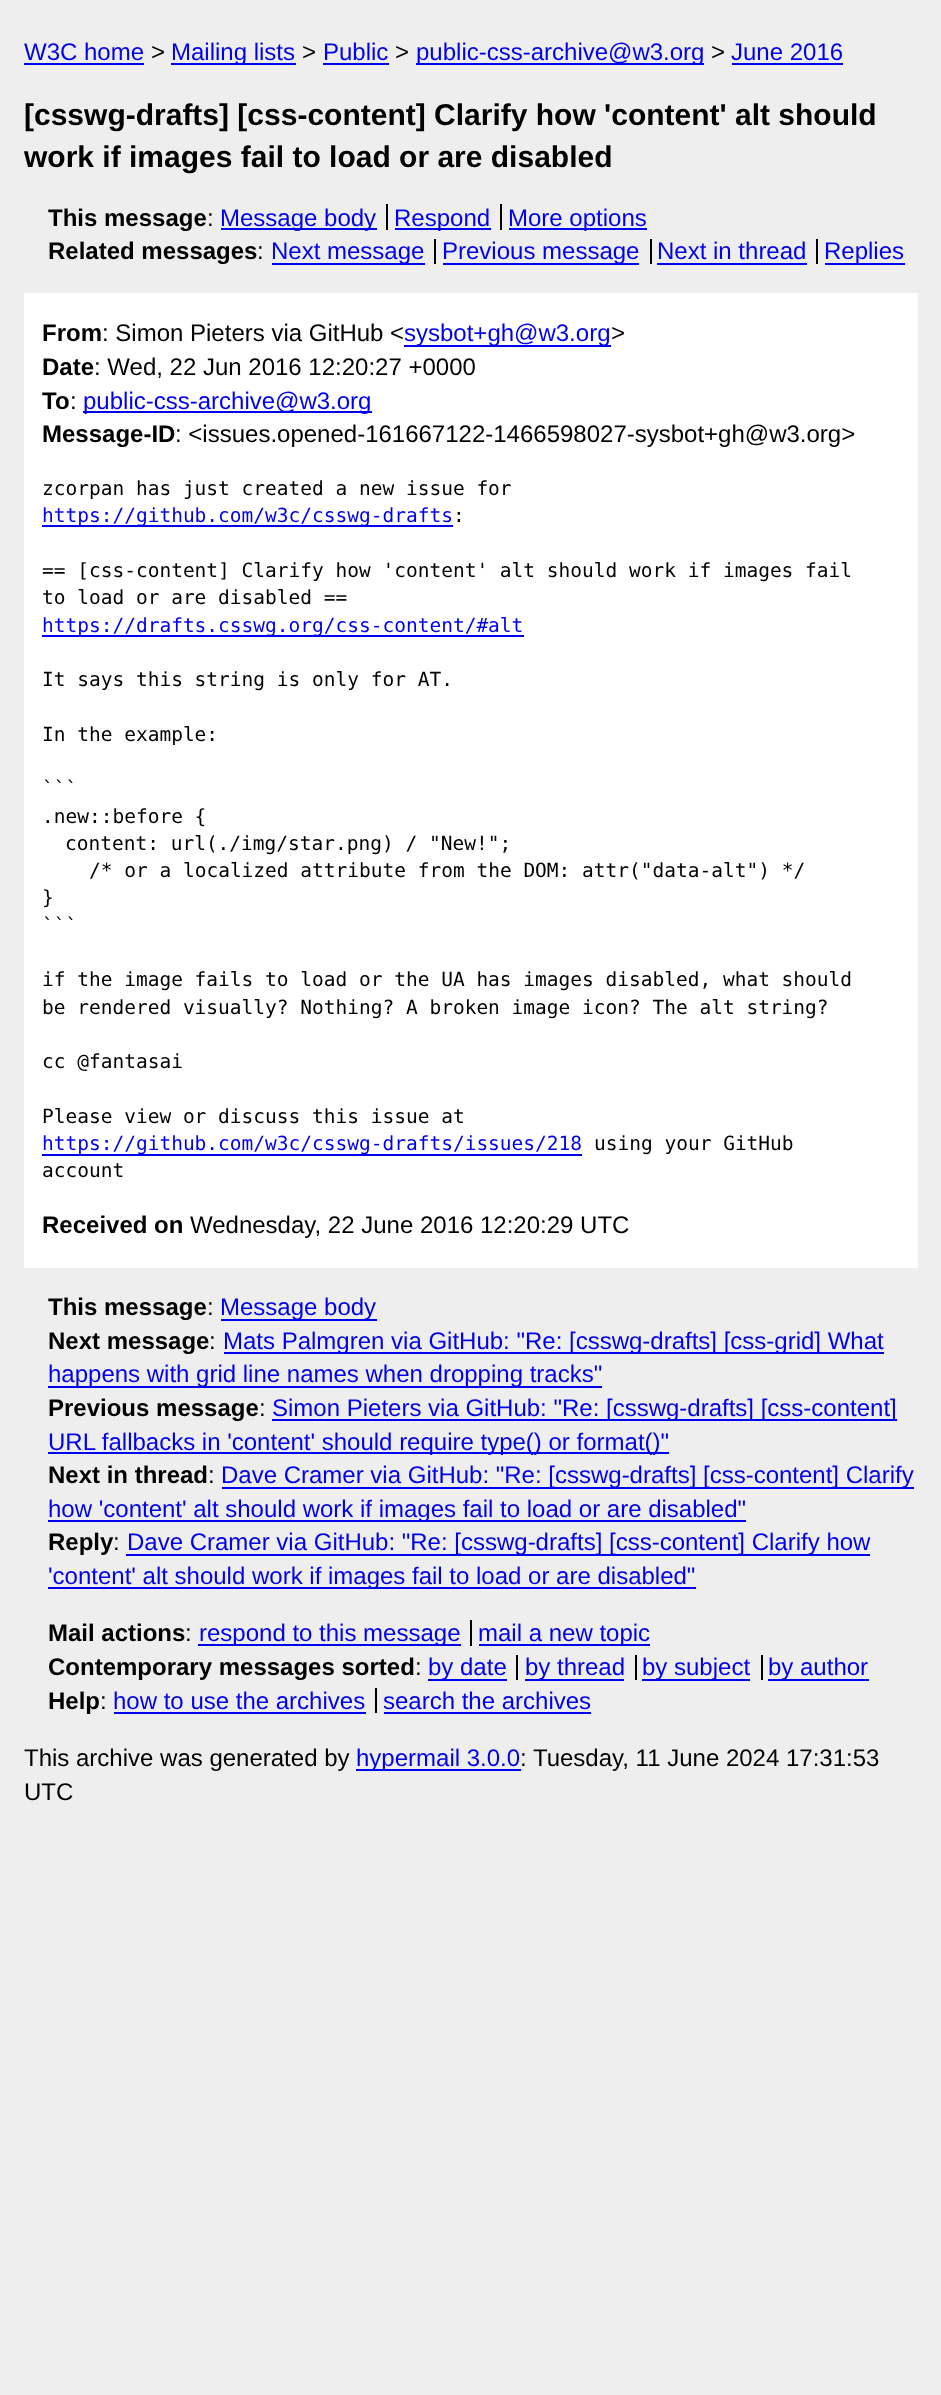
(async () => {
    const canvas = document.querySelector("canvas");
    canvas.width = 941;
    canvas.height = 2395;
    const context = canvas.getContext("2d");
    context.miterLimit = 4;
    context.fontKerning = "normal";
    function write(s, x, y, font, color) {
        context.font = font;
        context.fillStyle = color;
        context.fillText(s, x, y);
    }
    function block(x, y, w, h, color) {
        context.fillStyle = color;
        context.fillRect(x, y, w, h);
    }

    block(0, 0, 941, 2395, "rgb(238, 238, 238)");
    write("W3C home", 24, 60, "24px Liberation Sans", "rgb(0, 0, 238)");
    block(24, 63, 120, 2, "rgb(0, 0, 238)");
    write(">", 151, 60, "24px Liberation Sans", "rgb(0, 0, 0)");
    block(171, 63, 125, 2, "rgb(0, 0, 238)");
    write("Mailing lists", 171, 60, "24px Liberation Sans", "rgb(0, 0, 238)");
    write(">", 302, 60, "24px Liberation Sans", "rgb(0, 0, 0)");
    write("Public", 323, 60, "24px Liberation Sans", "rgb(0, 0, 238)");
    block(323, 63, 66, 2, "rgb(0, 0, 238)");
    write(">", 395, 60, "24px Liberation Sans", "rgb(0, 0, 0)");
    block(416, 63, 288, 2, "rgb(0, 0, 238)");
    write("public-css-archive@w3.org", 416, 60, "24px Liberation Sans", "rgb(0, 0, 238)");
    write(">", 711, 60, "24px Liberation Sans", "rgb(0, 0, 0)");
    write("June 2016", 731, 60, "24px Liberation Sans", "rgb(0, 0, 238)");
    block(732, 63, 111, 2, "rgb(0, 0, 238)");
    write("[csswg-drafts] [css-content] Clarify how 'content' alt should", 24, 125, "bold 30px Liberation Sans", "rgb(0, 0, 0)");
    write("work if images fail to load or are disabled", 24, 167, "bold 30px Liberation Sans", "rgb(0, 0, 0)");
    write("This message", 48, 226, "bold 24px Liberation Sans", "rgb(0, 0, 0)");
    write(":", 207, 226, "24px Liberation Sans", "rgb(0, 0, 0)");
    block(221, 228, 156, 2, "rgb(0, 0, 238)");
    write("Message body", 220, 226, "24px Liberation Sans", "rgb(0, 0, 238)");
    block(395, 228, 96, 2, "rgb(0, 0, 238)");
    write("Respond", 394, 226, "24px Liberation Sans", "rgb(0, 0, 238)");
    block(386, 204, 2, 26, "rgb(0, 0, 0)");
    block(509, 228, 138, 2, "rgb(0, 0, 238)");
    write("More options", 508, 226, "24px Liberation Sans", "rgb(0, 0, 238)");
    block(500, 204, 2, 26, "rgb(0, 0, 0)");
    write("Related messages", 48, 259, "bold 24px Liberation Sans", "rgb(0, 0, 0)");
    write(":", 257, 259, "24px Liberation Sans", "rgb(0, 0, 0)");
    block(272, 263, 153, 2, "rgb(0, 0, 238)");
    write("Next message", 271, 259, "24px Liberation Sans", "rgb(0, 0, 238)");
    block(443, 263, 196, 2, "rgb(0, 0, 238)");
    write("Previous message", 442, 259, "24px Liberation Sans", "rgb(0, 0, 238)");
    block(434, 239, 2, 25, "rgb(0, 0, 0)");
    write("Next in thread", 657, 259, "24px Liberation Sans", "rgb(0, 0, 238)");
    block(650, 239, 2, 25, "rgb(0, 0, 0)");
    block(657, 263, 150, 2, "rgb(0, 0, 238)");
    block(825, 263, 80, 2, "rgb(0, 0, 238)");
    write("Replies", 824, 259, "24px Liberation Sans", "rgb(0, 0, 238)");
    block(816, 239, 2, 25, "rgb(0, 0, 0)");
    block(24, 293, 894, 975, "rgb(255, 255, 255)");
    write("From", 42, 341, "bold 24px Liberation Sans", "rgb(0, 0, 0)");
    write(": Simon Pieters via GitHub <", 102, 341, "24px Liberation Sans", "rgb(0, 0, 0)");
    block(404, 345, 207, 2, "rgb(0, 0, 238)");
    write("sysbot+gh@w3.org", 404, 341, "24px Liberation Sans", "rgb(0, 0, 238)");
    write(">", 611, 341, "24px Liberation Sans", "rgb(0, 0, 0)");
    write("Date", 42, 375, "bold 24px Liberation Sans", "rgb(0, 0, 0)");
    write(": Wed, 22 Jun 2016 12:20:27 +0000", 94, 375, "24px Liberation Sans", "rgb(0, 0, 0)");
    write("To", 42, 409, "bold 24px Liberation Sans", "rgb(0, 0, 0)");
    write(":", 70, 409, "24px Liberation Sans", "rgb(0, 0, 0)");
    block(83, 411, 289, 2, "rgb(0, 0, 238)");
    write("public-css-archive@w3.org", 83, 409, "24px Liberation Sans", "rgb(0, 0, 238)");
    write("Message-ID", 42, 442, "bold 24px Liberation Sans", "rgb(0, 0, 0)");
    write(": <issues.opened-161667122-1466598027-sysbot+gh@w3.org>", 175, 442, "24px Liberation Sans", "rgb(0, 0, 0)");
    write("zcorpan has just created a new issue for", 42, 495, "19.5px DejaVu Sans Mono", "rgb(0, 0, 0)");
    block(42, 525, 411, 2, "rgb(0, 0, 238)");
    write("https://github.com/w3c/csswg-drafts", 42, 522, "19.5px DejaVu Sans Mono", "rgb(0, 0, 238)");
    write(":", 453, 522, "19.5px DejaVu Sans Mono", "rgb(0, 0, 0)");
    write("== [css-content] Clarify how 'content' alt should work if images fail", 42, 577, "19.5px DejaVu Sans Mono", "rgb(0, 0, 0)");
    write("to load or are disabled ==", 42, 604, "19.5px DejaVu Sans Mono", "rgb(0, 0, 0)");
    block(42, 635, 482, 2, "rgb(0, 0, 238)");
    write("https://drafts.csswg.org/css-content/#alt", 42, 632, "19.5px DejaVu Sans Mono", "rgb(0, 0, 238)");
    write("It says this string is only for AT.", 42, 686, "19.5px DejaVu Sans Mono", "rgb(0, 0, 0)");
    write("In the example:", 42, 741, "19.5px DejaVu Sans Mono", "rgb(0, 0, 0)");
    write("```", 42, 795, "19.5px DejaVu Sans Mono", "rgb(0, 0, 0)");
    write(".new::before {", 42, 823, "19.5px DejaVu Sans Mono", "rgb(0, 0, 0)");
    write("content: url(./img/star.png) / \"New!\";", 65, 850, "19.5px DejaVu Sans Mono", "rgb(0, 0, 0)");
    write("/* or a localized attribute from the DOM: attr(\"data-alt\") */", 89, 877, "19.5px DejaVu Sans Mono", "rgb(0, 0, 0)");
    write("}", 42, 904, "19.5px DejaVu Sans Mono", "rgb(0, 0, 0)");
    write("```", 42, 932, "19.5px DejaVu Sans Mono", "rgb(0, 0, 0)");
    write("if the image fails to load or the UA has images disabled, what should", 42, 986, "19.5px DejaVu Sans Mono", "rgb(0, 0, 0)");
    write("be rendered visually? Nothing? A broken image icon? The alt string?", 42, 1014, "19.5px DejaVu Sans Mono", "rgb(0, 0, 0)");
    write("cc @fantasai", 42, 1068, "19.5px DejaVu Sans Mono", "rgb(0, 0, 0)");
    write("Please view or discuss this issue at", 42, 1123, "19.5px DejaVu Sans Mono", "rgb(0, 0, 0)");
    block(42, 1154, 540, 2, "rgb(0, 0, 238)");
    write("https://github.com/w3c/csswg-drafts/issues/218", 42, 1150, "19.5px DejaVu Sans Mono", "rgb(0, 0, 238)");
    write("using your GitHub", 594, 1150, "19.5px DejaVu Sans Mono", "rgb(0, 0, 0)");
    write("account", 42, 1177, "19.5px DejaVu Sans Mono", "rgb(0, 0, 0)");
    write("Received on", 42, 1233, "bold 24px Liberation Sans", "rgb(0, 0, 0)");
    write("Wednesday, 22 June 2016 12:20:29 UTC", 190, 1233, "24px Liberation Sans", "rgb(0, 0, 0)");
    write("This message", 48, 1315, "bold 24px Liberation Sans", "rgb(0, 0, 0)");
    write(":", 207, 1315, "24px Liberation Sans", "rgb(0, 0, 0)");
    block(221, 1319, 156, 2, "rgb(0, 0, 238)");
    write("Message body", 220, 1315, "24px Liberation Sans", "rgb(0, 0, 238)");
    write("Next message", 48, 1349, "bold 24px Liberation Sans", "rgb(0, 0, 0)");
    write(":", 209, 1349, "24px Liberation Sans", "rgb(0, 0, 0)");
    block(224, 1352, 660, 2, "rgb(0, 0, 238)");
    write("Mats Palmgren via GitHub: \"Re: [csswg-drafts] [css-grid] What", 223, 1349, "24px Liberation Sans", "rgb(0, 0, 238)");
    block(48, 1386, 554, 2, "rgb(0, 0, 238)");
    write("happens with grid line names when dropping tracks\"", 48, 1382, "24px Liberation Sans", "rgb(0, 0, 238)");
    write("Previous message", 48, 1416, "bold 24px Liberation Sans", "rgb(0, 0, 0)");
    write(":", 259, 1416, "24px Liberation Sans", "rgb(0, 0, 0)");
    block(272, 1419, 625, 2, "rgb(0, 0, 238)");
    write("Simon Pieters via GitHub: \"Re: [csswg-drafts] [css-content]", 272, 1416, "24px Liberation Sans", "rgb(0, 0, 238)");
    block(48, 1452, 621, 2, "rgb(0, 0, 238)");
    write("URL fallbacks in 'content' should require type() or format()\"", 48, 1450, "24px Liberation Sans", "rgb(0, 0, 238)");
    write("Next in thread", 48, 1483, "bold 24px Liberation Sans", "rgb(0, 0, 0)");
    write(":", 208, 1483, "24px Liberation Sans", "rgb(0, 0, 0)");
    block(222, 1487, 692, 2, "rgb(0, 0, 238)");
    write("Dave Cramer via GitHub: \"Re: [csswg-drafts] [css-content] Clarify", 221, 1483, "24px Liberation Sans", "rgb(0, 0, 238)");
    block(48, 1520, 698, 2, "rgb(0, 0, 238)");
    write("how 'content' alt should work if images fail to load or are disabled\"", 48, 1517, "24px Liberation Sans", "rgb(0, 0, 238)");
    write("Reply", 48, 1550, "bold 24px Liberation Sans", "rgb(0, 0, 0)");
    write(":", 113, 1550, "24px Liberation Sans", "rgb(0, 0, 0)");
    block(126, 1554, 744, 2, "rgb(0, 0, 238)");
    write("Dave Cramer via GitHub: \"Re: [csswg-drafts] [css-content] Clarify how", 127, 1550, "24px Liberation Sans", "rgb(0, 0, 238)");
    block(48, 1587, 648, 2, "rgb(0, 0, 238)");
    write("'content' alt should work if images fail to load or are disabled\"", 48, 1584, "24px Liberation Sans", "rgb(0, 0, 238)");
    write("Mail actions", 48, 1641, "bold 24px Liberation Sans", "rgb(0, 0, 0)");
    write(":", 185, 1641, "24px Liberation Sans", "rgb(0, 0, 0)");
    block(198, 1644, 263, 2, "rgb(0, 0, 238)");
    write("respond to this message", 199, 1641, "24px Liberation Sans", "rgb(0, 0, 238)");
    block(479, 1644, 171, 2, "rgb(0, 0, 238)");
    write("mail a new topic", 478, 1641, "24px Liberation Sans", "rgb(0, 0, 238)");
    block(470, 1620, 2, 26, "rgb(0, 0, 0)");
    write("Contemporary messages sorted", 48, 1675, "bold 24px Liberation Sans", "rgb(0, 0, 0)");
    write(":", 415, 1675, "24px Liberation Sans", "rgb(0, 0, 0)");
    block(428, 1679, 79, 2, "rgb(0, 0, 238)");
    write("by date", 428, 1675, "24px Liberation Sans", "rgb(0, 0, 238)");
    block(525, 1679, 99, 2, "rgb(0, 0, 238)");
    write("by thread", 525, 1675, "24px Liberation Sans", "rgb(0, 0, 238)");
    block(516, 1655, 2, 25, "rgb(0, 0, 0)");
    block(642, 1679, 108, 2, "rgb(0, 0, 238)");
    write("by subject", 642, 1675, "24px Liberation Sans", "rgb(0, 0, 238)");
    block(635, 1655, 2, 25, "rgb(0, 0, 0)");
    block(768, 1679, 101, 2, "rgb(0, 0, 238)");
    write("by author", 768, 1675, "24px Liberation Sans", "rgb(0, 0, 238)");
    block(761, 1655, 2, 25, "rgb(0, 0, 0)");
    write("Help", 48, 1709, "bold 24px Liberation Sans", "rgb(0, 0, 0)");
    write(":", 100, 1709, "24px Liberation Sans", "rgb(0, 0, 0)");
    write("how to use the archives", 113, 1709, "24px Liberation Sans", "rgb(0, 0, 238)");
    block(114, 1712, 252, 2, "rgb(0, 0, 238)");
    write("search the archives", 383, 1709, "24px Liberation Sans", "rgb(0, 0, 238)");
    block(375, 1688, 2, 25, "rgb(0, 0, 0)");
    block(384, 1712, 207, 2, "rgb(0, 0, 238)");
    write("This archive was generated by", 24, 1766, "24px Liberation Sans", "rgb(0, 0, 0)");
    block(356, 1769, 165, 2, "rgb(0, 0, 238)");
    write("hypermail 3.0.0", 356, 1766, "24px Liberation Sans", "rgb(0, 0, 238)");
    write(": Tuesday, 11 June 2024 17:31:53", 520, 1766, "24px Liberation Sans", "rgb(0, 0, 0)");
    write("UTC", 24, 1800, "24px Liberation Sans", "rgb(0, 0, 0)");
})();
